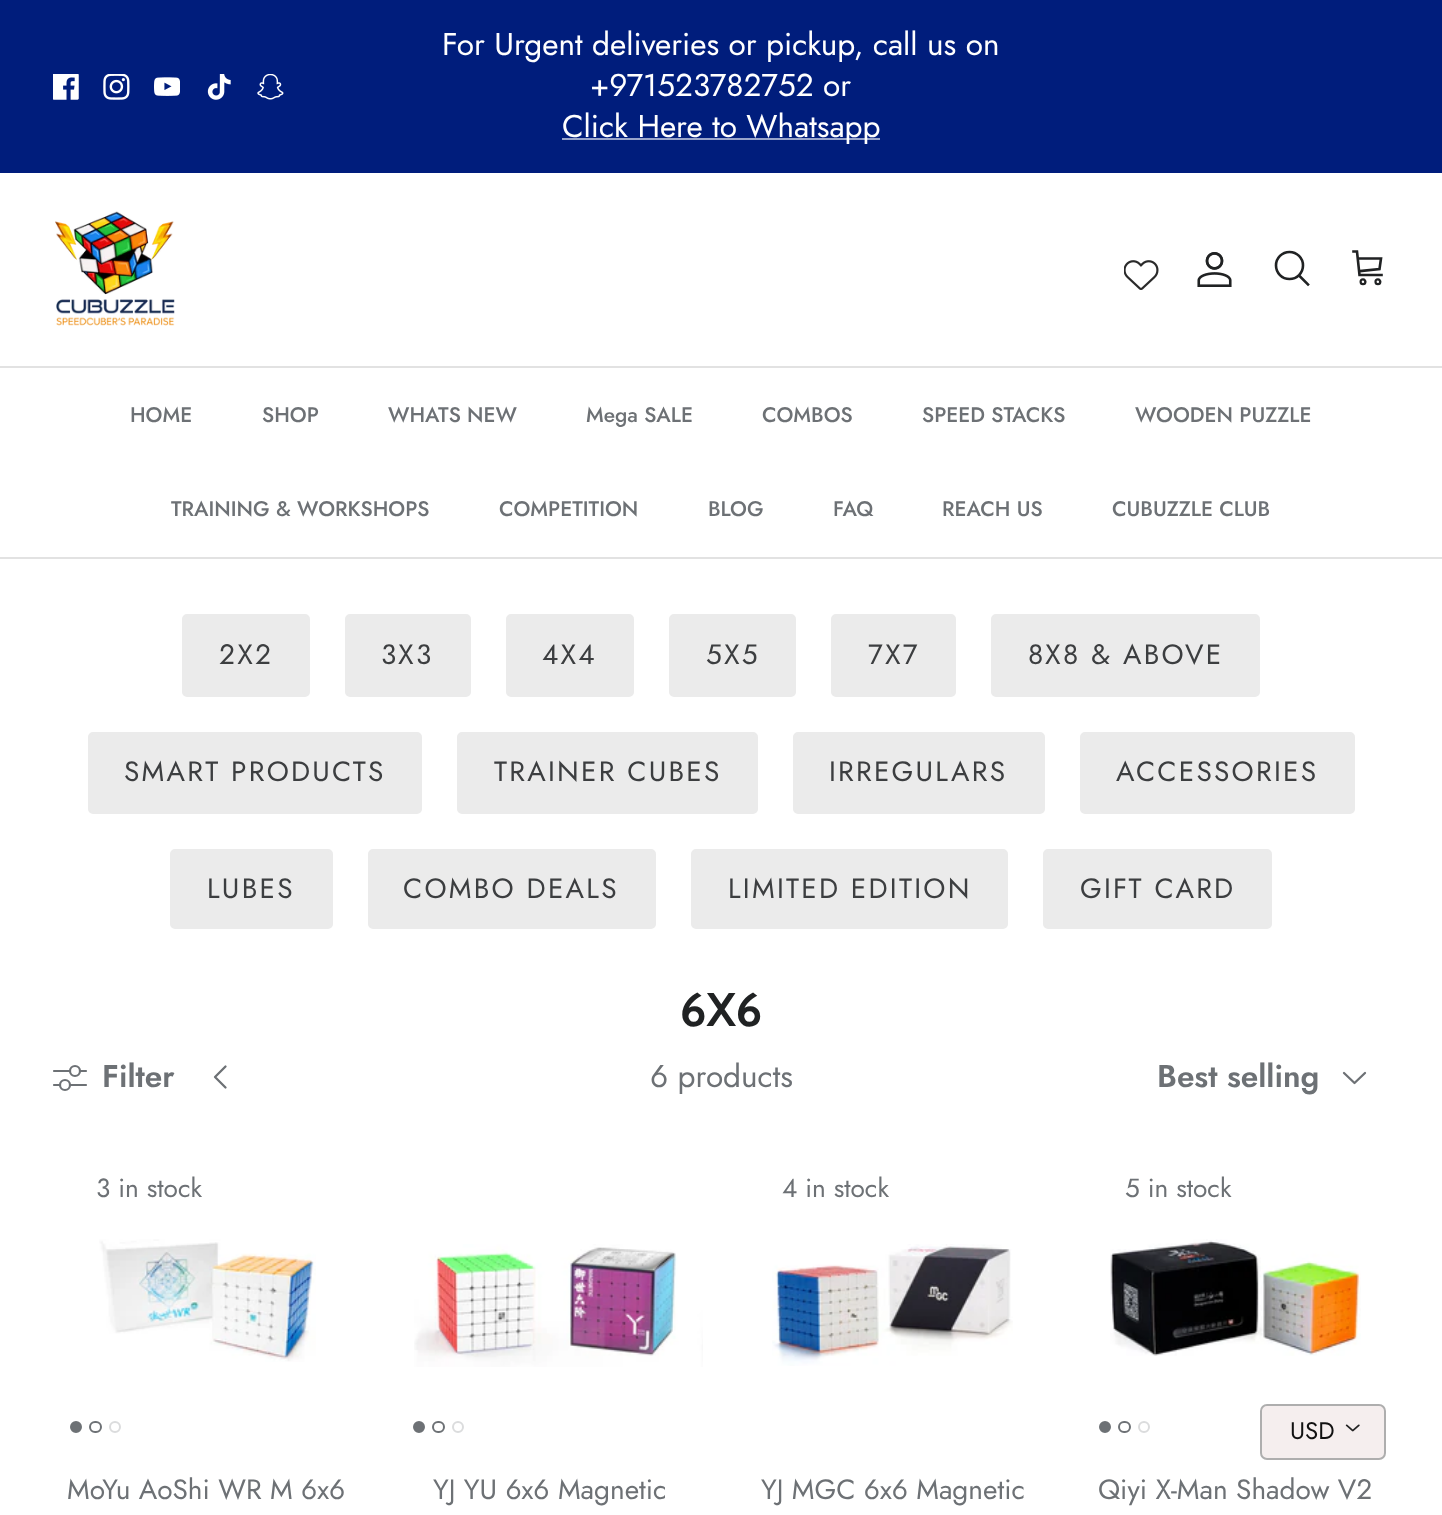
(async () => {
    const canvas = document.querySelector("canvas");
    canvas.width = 1442;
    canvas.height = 1515;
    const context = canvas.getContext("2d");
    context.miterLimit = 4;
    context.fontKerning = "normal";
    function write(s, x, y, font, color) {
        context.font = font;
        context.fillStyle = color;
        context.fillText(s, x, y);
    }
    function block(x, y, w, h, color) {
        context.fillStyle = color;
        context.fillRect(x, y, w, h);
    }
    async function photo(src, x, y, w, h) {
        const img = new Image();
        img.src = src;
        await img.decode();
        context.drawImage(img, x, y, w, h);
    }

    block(0, 0, 1442, 1515, "rgb(255, 255, 255)");
    block(0, 0, 1442, 173, "rgb(0, 29, 124)");
    await photo("media/1.png", 53, 74, 26, 26);
    await photo("media/2.png", 103, 74, 27, 26);
    await photo("media/3.png", 154, 77, 26, 19);
    await photo("media/4.png", 207, 74, 24, 26);
    await photo("media/5.png", 257, 74, 27, 26);
    write("For Urgent deliveries or pickup, call us on", 442, 55, "31.5px Jost", "rgb(255, 255, 255)");
    write("+971523782752 or", 590, 96, "31.5px Jost", "rgb(255, 255, 255)");
    block(562, 138, 318, 2, "rgb(153, 165, 203)");
    write("Click Here to Whatsapp", 562, 137, "31.5px Jost", "rgb(255, 255, 255)");
    block(0, 366, 1442, 2, "rgb(226, 226, 226)");
    await photo("media/6.png", 55, 211, 120, 115);
    await photo("media/7.png", 1124, 260, 35, 30);
    await photo("media/8.png", 1197, 252, 35, 35);
    context.beginPath();
    context.arc(1289.5, 265.5, 13.5, 0, Math.PI * 2);
    context.strokeStyle = "rgb(32, 34, 35)";
    context.lineWidth = 2.6;
    context.stroke();
    context.beginPath();
    context.moveTo(1300, 276.5);
    context.lineTo(1308, 284.5);
    context.lineCap = "square";
    context.stroke();
    context.beginPath();
    context.moveTo(1353.5, 251.5);
    context.lineTo(1357, 251.5);
    context.lineTo(1359.5, 275);
    context.lineTo(1381.5, 275);
    context.moveTo(1358.5, 258.5);
    context.lineTo(1381, 258.5);
    context.lineTo(1379.5, 269);
    context.lineTo(1361, 271);
    context.stroke();
    context.beginPath();
    context.arc(1363, 281.8, 2.4, 0, Math.PI * 2);
    context.lineWidth = 2.2;
    context.stroke();
    context.beginPath();
    context.arc(1377.9, 281.8, 2.4, 0, Math.PI * 2);
    context.stroke();
    block(0, 557, 1442, 2, "rgb(226, 226, 226)");
    write("HOME", 130, 422, "500 21px Jost", "rgb(109, 113, 117)");
    write("SHOP", 262, 422, "500 21px Jost", "rgb(109, 113, 117)");
    write("WHATS NEW", 388, 422, "500 21px Jost", "rgb(109, 113, 117)");
    write("Mega SALE", 586, 422, "500 21px Jost", "rgb(109, 113, 117)");
    write("COMBOS", 762, 422, "500 21px Jost", "rgb(109, 113, 117)");
    write("SPEED STACKS", 922, 422, "500 21px Jost", "rgb(109, 113, 117)");
    write("WOODEN PUZZLE", 1135, 422, "500 21px Jost", "rgb(109, 113, 117)");
    write("TRAINING & WORKSHOPS", 171, 516, "500 21px Jost", "rgb(109, 113, 117)");
    write("COMPETITION", 499, 516, "500 21px Jost", "rgb(109, 113, 117)");
    write("BLOG", 708, 516, "500 21px Jost", "rgb(109, 113, 117)");
    write("FAQ", 833, 516, "500 21px Jost", "rgb(109, 113, 117)");
    write("REACH US", 942, 516, "500 21px Jost", "rgb(109, 113, 117)");
    write("CUBUZZLE CLUB", 1112, 516, "500 21px Jost", "rgb(109, 113, 117)");
    context.fillStyle = "rgb(235, 235, 235)";
    context.beginPath();
    context.roundRect(183, 615, 126, 81, 4);
    context.fill();
    context.strokeStyle = "rgb(235, 235, 235)";
    context.lineWidth = 2;
    context.stroke();
    context.letterSpacing = "2.25px";
    write("2X2", 219, 664, "28px Jost", "rgb(60, 62, 64)");
    context.fillStyle = "rgb(235, 235, 235)";
    context.beginPath();
    context.roundRect(346, 615, 124, 81, 4);
    context.fill();
    context.stroke();
    write("3X3", 381, 664, "28px Jost", "rgb(60, 62, 64)");
    context.fillStyle = "rgb(235, 235, 235)";
    context.beginPath();
    context.roundRect(507, 615, 126, 81, 4);
    context.fill();
    context.stroke();
    write("4X4", 542, 664, "28px Jost", "rgb(60, 62, 64)");
    context.fillStyle = "rgb(235, 235, 235)";
    context.beginPath();
    context.roundRect(670, 615, 125, 81, 4);
    context.fill();
    context.stroke();
    write("5X5", 706, 664, "28px Jost", "rgb(60, 62, 64)");
    context.fillStyle = "rgb(235, 235, 235)";
    context.beginPath();
    context.roundRect(832, 615, 123, 81, 4);
    context.fill();
    context.stroke();
    write("7X7", 868, 664, "28px Jost", "rgb(60, 62, 64)");
    context.fillStyle = "rgb(235, 235, 235)";
    context.beginPath();
    context.roundRect(992, 615, 267, 81, 4);
    context.fill();
    context.stroke();
    write("8X8 & ABOVE", 1028, 664, "28px Jost", "rgb(60, 62, 64)");
    context.fillStyle = "rgb(235, 235, 235)";
    context.beginPath();
    context.roundRect(89, 733, 332, 80, 4);
    context.fill();
    context.stroke();
    write("SMART PRODUCTS", 124, 781, "28px Jost", "rgb(60, 62, 64)");
    context.fillStyle = "rgb(235, 235, 235)";
    context.beginPath();
    context.roundRect(458, 733, 299, 80, 4);
    context.fill();
    context.stroke();
    write("TRAINER CUBES", 494, 781, "28px Jost", "rgb(60, 62, 64)");
    context.fillStyle = "rgb(235, 235, 235)";
    context.beginPath();
    context.roundRect(794, 733, 250, 80, 4);
    context.fill();
    context.stroke();
    write("IRREGULARS", 829, 781, "28px Jost", "rgb(60, 62, 64)");
    context.fillStyle = "rgb(235, 235, 235)";
    context.beginPath();
    context.roundRect(1081, 733, 273, 80, 4);
    context.fill();
    context.stroke();
    write("ACCESSORIES", 1116, 781, "28px Jost", "rgb(60, 62, 64)");
    context.fillStyle = "rgb(235, 235, 235)";
    context.beginPath();
    context.roundRect(171, 850, 161, 78, 4);
    context.fill();
    context.stroke();
    write("LUBES", 207, 898, "28px Jost", "rgb(60, 62, 64)");
    context.fillStyle = "rgb(235, 235, 235)";
    context.beginPath();
    context.roundRect(369, 850, 286, 78, 4);
    context.fill();
    context.stroke();
    write("COMBO DEALS", 403, 898, "28px Jost", "rgb(60, 62, 64)");
    context.fillStyle = "rgb(235, 235, 235)";
    context.beginPath();
    context.roundRect(692, 850, 315, 78, 4);
    context.fill();
    context.stroke();
    write("LIMITED EDITION", 728, 898, "28px Jost", "rgb(60, 62, 64)");
    context.fillStyle = "rgb(235, 235, 235)";
    context.beginPath();
    context.roundRect(1044, 850, 227, 78, 4);
    context.fill();
    context.stroke();
    write("GIFT CARD", 1080, 898, "28px Jost", "rgb(60, 62, 64)");
    context.letterSpacing = "0px";
    write("6X6", 680, 1026, "bold 47px Cabin", "rgb(32, 34, 35)");
    context.beginPath();
    context.moveTo(54, 1071);
    context.lineTo(86, 1071);
    context.moveTo(54, 1085);
    context.lineTo(86, 1085);
    context.strokeStyle = "rgb(109, 113, 117)";
    context.lineWidth = 2.2;
    context.lineCap = "round";
    context.lineJoin = "round";
    context.stroke();
    context.fillStyle = "rgb(255, 255, 255)";
    context.beginPath();
    context.arc(75, 1071, 5, 0, Math.PI * 2);
    context.fill();
    context.stroke();
    context.beginPath();
    context.arc(65, 1085, 5, 0, Math.PI * 2);
    context.fill();
    context.stroke();
    write("Filter", 102, 1087, "600 31.5px Jost", "rgb(109, 113, 117)");
    context.beginPath();
    context.moveTo(225.5, 1066.5);
    context.lineTo(215, 1077);
    context.lineTo(225.5, 1087.5);
    context.lineWidth = 2.3;
    context.stroke();
    write("6 products", 650, 1087, "31.5px Jost", "rgb(109, 113, 117)");
    write("Best selling", 1157, 1087, "600 31.5px Jost", "rgb(109, 113, 117)");
    context.beginPath();
    context.moveTo(1344, 1073);
    context.lineTo(1354.5, 1083);
    context.lineTo(1365, 1073);
    context.stroke();
    write("3 in stock", 96, 1197, "26.25px Jost", "rgb(109, 113, 117)");
    await photo("media/9.png", 99, 1239, 217, 123);
    context.beginPath();
    context.arc(76, 1427, 5, 0, Math.PI * 2);
    context.fill();
    context.lineWidth = 2;
    context.stroke();
    context.beginPath();
    context.roundRect(90, 1422, 11, 10, 5);
    context.lineJoin = "miter";
    context.stroke();
    context.beginPath();
    context.arc(115, 1427, 5, 0, Math.PI * 2);
    context.strokeStyle = "rgb(219, 220, 221)";
    context.stroke();
    write("MoYu AoShi WR M 6x6", 67, 1499, "28px Jost", "rgb(109, 113, 117)");
    await photo("media/10.png", 414, 1244, 289, 123);
    context.beginPath();
    context.arc(419, 1427, 5, 0, Math.PI * 2);
    context.fill();
    context.strokeStyle = "rgb(109, 113, 117)";
    context.stroke();
    context.beginPath();
    context.roundRect(433, 1422, 11, 10, 5);
    context.stroke();
    context.beginPath();
    context.arc(458, 1427, 5, 0, Math.PI * 2);
    context.strokeStyle = "rgb(219, 220, 221)";
    context.stroke();
    write("YJ YU 6x6 Magnetic", 433, 1499, "28px Jost", "rgb(109, 113, 117)");
    write("4 in stock", 782, 1197, "26.25px Jost", "rgb(109, 113, 117)");
    await photo("media/11.png", 772, 1244, 241, 122);
    write("YJ MGC 6x6 Magnetic", 761, 1499, "28px Jost", "rgb(109, 113, 117)");
    write("5 in stock", 1125, 1197, "26.25px Jost", "rgb(109, 113, 117)");
    await photo("media/12.png", 1110, 1239, 251, 117);
    context.beginPath();
    context.arc(1105, 1427, 5, 0, Math.PI * 2);
    context.fill();
    context.strokeStyle = "rgb(109, 113, 117)";
    context.stroke();
    context.beginPath();
    context.roundRect(1119, 1422, 11, 10, 5);
    context.stroke();
    context.beginPath();
    context.arc(1144, 1427, 5, 0, Math.PI * 2);
    context.strokeStyle = "rgb(219, 220, 221)";
    context.stroke();
    write("Qiyi X-Man Shadow V2", 1098, 1499, "28px Jost", "rgb(109, 113, 117)");
    context.fillStyle = "rgb(245, 238, 238)";
    context.beginPath();
    context.roundRect(1261, 1405, 124, 54, 6);
    context.fill();
    context.strokeStyle = "rgb(174, 174, 174)";
    context.stroke();
    write("USD", 1290, 1439, "24px Jost", "rgb(17, 17, 17)");
    await photo("media/13.png", 1345, 1424, 15, 8);
})();
